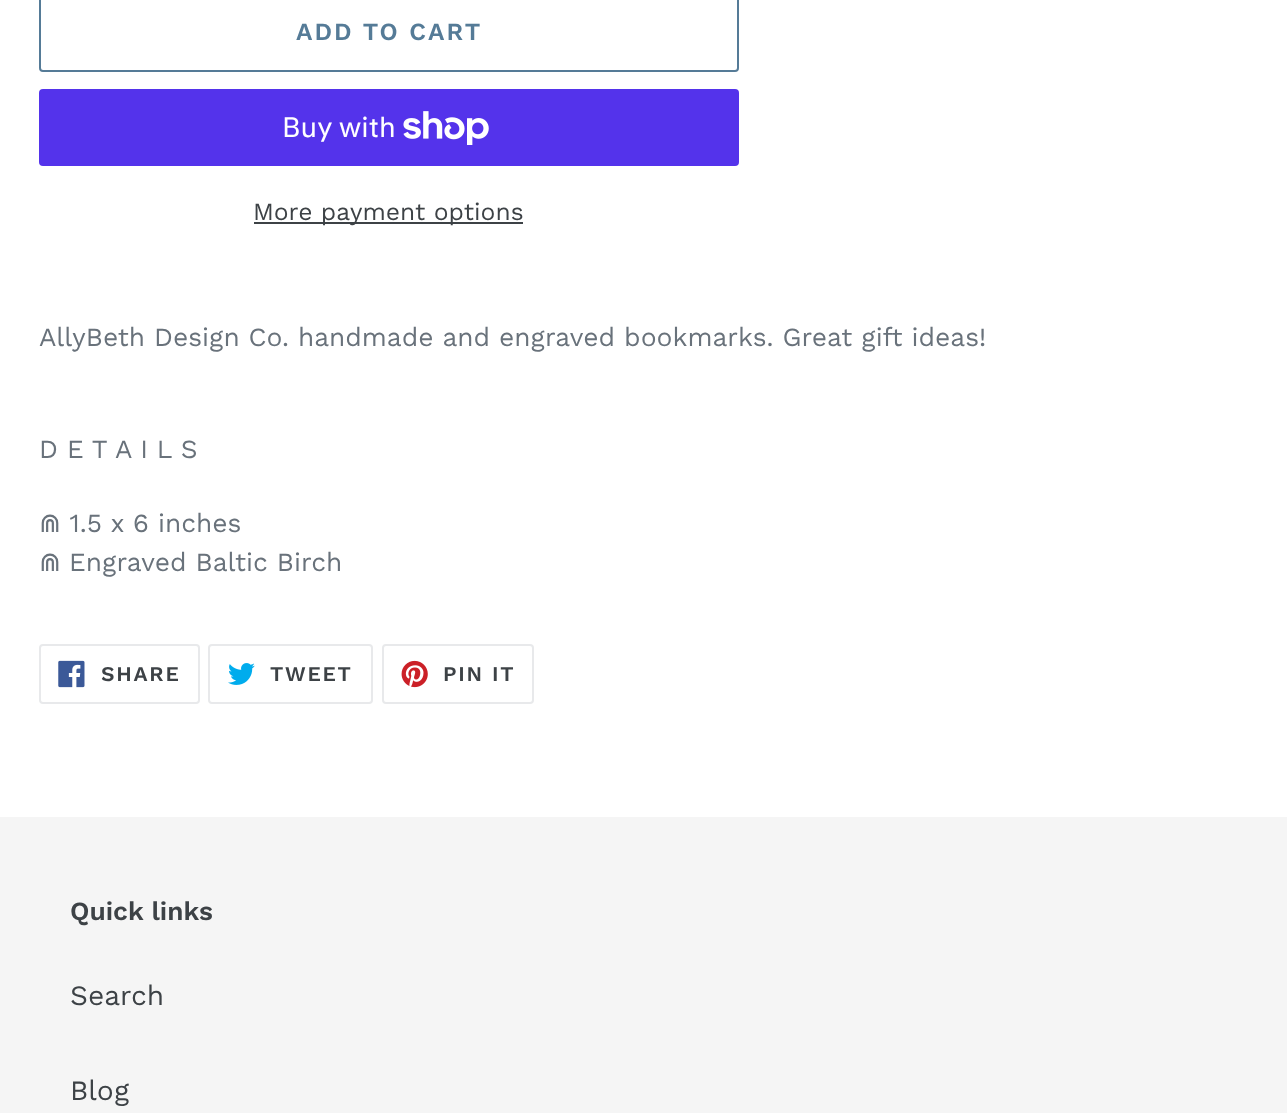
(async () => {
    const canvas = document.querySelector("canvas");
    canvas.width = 1287;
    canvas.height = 1113;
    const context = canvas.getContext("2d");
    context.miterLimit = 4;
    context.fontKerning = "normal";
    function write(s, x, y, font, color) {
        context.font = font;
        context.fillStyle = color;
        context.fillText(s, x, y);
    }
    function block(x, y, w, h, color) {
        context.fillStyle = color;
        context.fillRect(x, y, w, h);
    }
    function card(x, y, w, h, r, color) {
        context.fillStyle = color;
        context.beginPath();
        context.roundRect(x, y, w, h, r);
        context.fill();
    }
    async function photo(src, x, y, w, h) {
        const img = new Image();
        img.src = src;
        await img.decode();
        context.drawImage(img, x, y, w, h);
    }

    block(0, 0, 1287, 1113, "rgb(255, 255, 255)");
    context.beginPath();
    context.roundRect(40, -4, 698, 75, 3);
    context.strokeStyle = "rgb(85, 123, 151)";
    context.lineWidth = 2;
    context.stroke();
    context.letterSpacing = "2px";
    write("ADD TO CART", 296, 40, "600 24.5px Work Sans", "rgb(85, 123, 151)");
    card(39, 89, 700, 77, 4, "rgb(84, 51, 235)");
    context.letterSpacing = "0px";
    write("Buy with", 282, 137, "28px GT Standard", "rgb(255, 255, 255)");
    await photo("media/1.png", 403, 111, 86, 34);
    block(254, 222, 269, 2, "rgb(61, 66, 70)");
    write("More payment options", 253, 220, "24.5px Work Sans", "rgb(61, 66, 70)");
    write("AllyBeth Design Co. handmade and engraved bookmarks. Great gift ideas!", 39, 346, "26.25px Work Sans", "rgb(105, 114, 123)");
    write("D E T A I L S", 39, 458, "26.25px Work Sans", "rgb(105, 114, 123)");
    write("⋒", 39, 532, "26.25px DejaVu Sans", "rgb(105, 114, 123)");
    write("1.5 x 6 inches", 69, 532, "26.25px Work Sans", "rgb(105, 114, 123)");
    write("⋒", 39, 571, "26.25px DejaVu Sans", "rgb(105, 114, 123)");
    write("Engraved Baltic Birch", 69, 571, "26.25px Work Sans", "rgb(105, 114, 123)");
    context.beginPath();
    context.roundRect(40, 645, 159, 58, 3);
    context.strokeStyle = "rgb(232, 233, 235)";
    context.stroke();
    await photo("media/2.png", 58, 660, 27, 28);
    context.letterSpacing = "1.75px";
    write("SHARE", 101, 681, "600 21px Work Sans", "rgb(61, 66, 70)");
    context.beginPath();
    context.roundRect(209, 645, 163, 58, 3);
    context.stroke();
    await photo("media/3.png", 228, 663, 27, 22);
    write("TWEET", 270, 681, "600 21px Work Sans", "rgb(61, 66, 70)");
    context.beginPath();
    context.roundRect(383, 645, 150, 58, 3);
    context.stroke();
    await photo("media/4.png", 401, 660, 27, 28);
    write("PIN IT", 443, 681, "600 21px Work Sans", "rgb(61, 66, 70)");
    block(0, 817, 1287, 296, "rgb(245, 245, 245)");
    context.letterSpacing = "0px";
    write("Quick links", 70, 920, "600 26.25px Work Sans", "rgb(61, 66, 70)");
    write("Search", 70, 1005, "28px Work Sans", "rgb(61, 66, 70)");
    write("Blog", 70, 1100, "28px Work Sans", "rgb(61, 66, 70)");
})();
